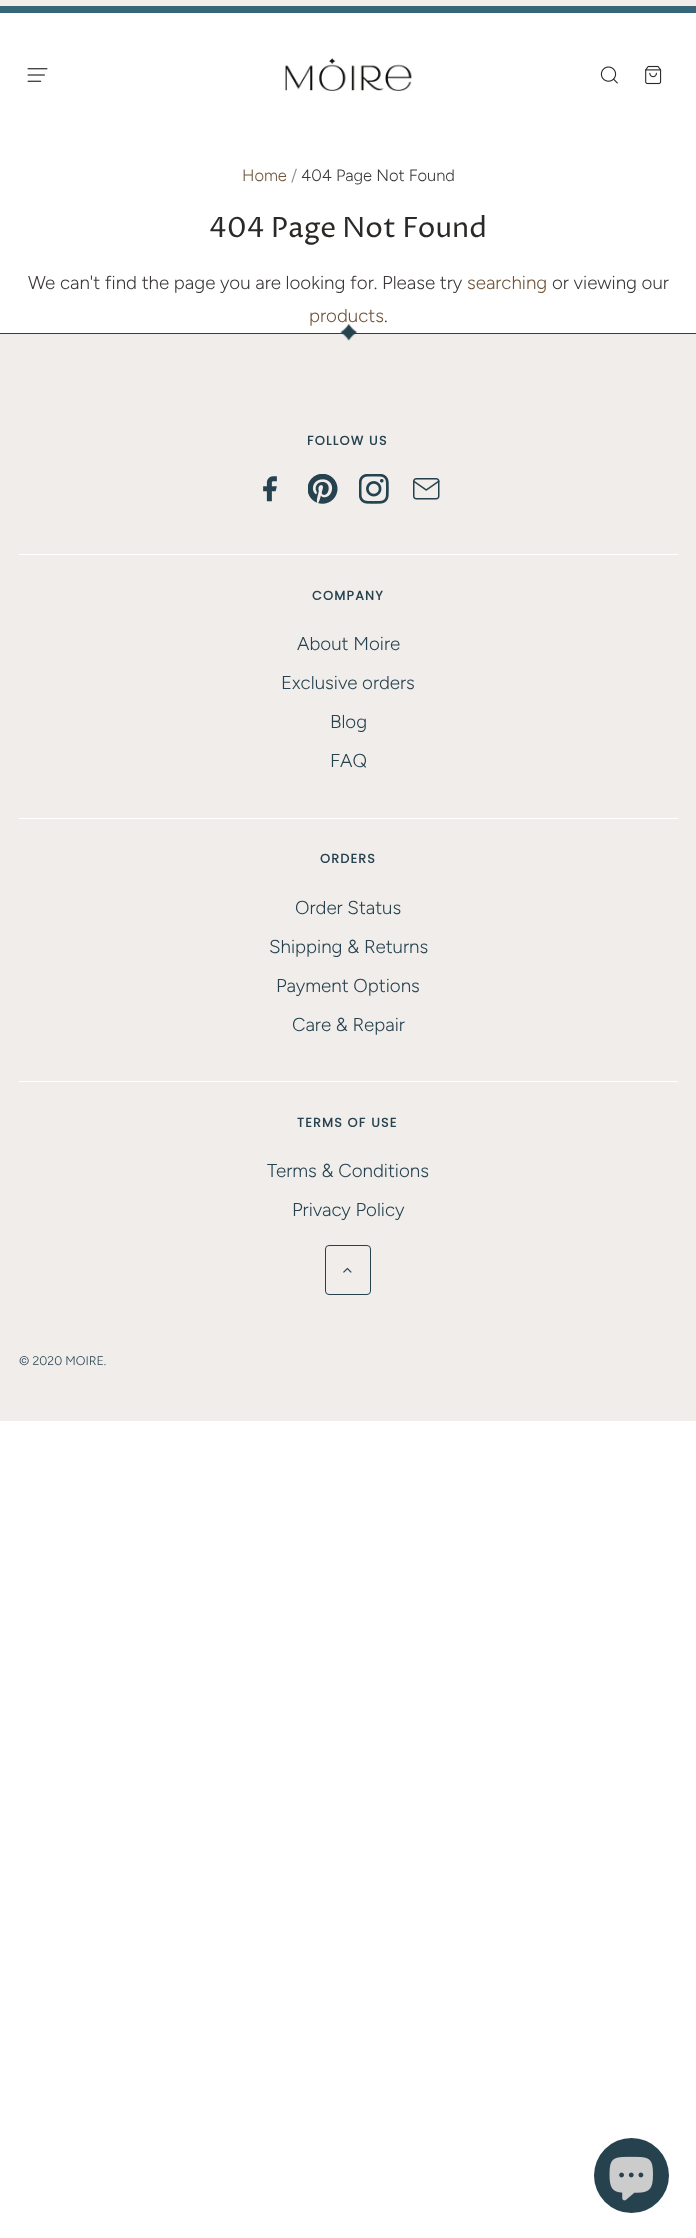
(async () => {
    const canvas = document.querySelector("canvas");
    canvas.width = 696;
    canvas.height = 2238;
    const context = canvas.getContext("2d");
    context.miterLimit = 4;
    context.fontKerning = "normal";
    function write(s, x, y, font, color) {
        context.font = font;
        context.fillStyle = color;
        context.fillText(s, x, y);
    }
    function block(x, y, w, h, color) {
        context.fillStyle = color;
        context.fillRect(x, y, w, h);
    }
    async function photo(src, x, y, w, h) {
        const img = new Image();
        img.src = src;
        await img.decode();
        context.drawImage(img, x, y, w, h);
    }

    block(0, 0, 696, 2238, "rgb(255, 255, 255)");
    block(0, 0, 696, 6, "rgb(240, 237, 235)");
    block(0, 6, 696, 7, "rgb(56, 102, 121)");
    await photo("media/1.png", 27, 68, 21, 14);
    await photo("media/2.png", 284, 58, 128, 33);
    await photo("media/3.png", 600, 66, 18, 18);
    await photo("media/4.png", 645, 65, 17, 20);
    write("Home", 242, 181, "300 16.5px Figtree", "rgb(111, 84, 57)");
    write("/", 291, 181, "300 16.5px Figtree", "rgb(138, 135, 135)");
    write("404 Page Not Found", 301, 181, "300 16.5px Figtree", "rgb(61, 56, 56)");
    write("404 Page Not Found", 209, 237, "28.1px Proza Libre", "rgb(43, 41, 39)");
    write("We can't find the page you are looking for. Please try", 28, 289, "300 18.75px Figtree", "rgb(61, 56, 56)");
    write("searching", 467, 289, "300 18.75px Figtree", "rgb(111, 84, 57)");
    write("or viewing our", 552, 289, "300 18.75px Figtree", "rgb(61, 56, 56)");
    write("products", 309, 322, "300 18.75px Figtree", "rgb(111, 84, 57)");
    write(".", 384, 322, "300 18.75px Figtree", "rgb(61, 56, 56)");
    block(0, 334, 696, 1087, "rgb(240, 237, 235)");
    block(0, 333, 696, 1, "rgb(38, 66, 79)");
    await photo("media/5.png", 340, 323, 18, 18);
    context.letterSpacing = "1.25px";
    write("FOLLOW US", 307, 445, "bold 12.75px Poppins", "rgb(38, 66, 79)");
    await photo("media/6.png", 263, 476, 14, 26);
    await photo("media/7.png", 308, 474, 30, 30);
    await photo("media/8.png", 359, 474, 30, 30);
    await photo("media/9.png", 413, 478, 27, 22);
    block(19, 554, 659, 1, "rgb(255, 255, 255)");
    write("COMPANY", 312, 600, "bold 12.75px Poppins", "rgb(38, 66, 79)");
    context.letterSpacing = "0px";
    write("About Moire", 297, 650, "300 18.75px Figtree", "rgb(38, 66, 79)");
    write("Exclusive orders", 281, 689, "300 18.75px Figtree", "rgb(38, 66, 79)");
    write("Blog", 330, 728, "300 18.75px Figtree", "rgb(38, 66, 79)");
    write("FAQ", 330, 767, "300 18.75px Figtree", "rgb(38, 66, 79)");
    block(19, 818, 659, 1, "rgb(255, 255, 255)");
    context.letterSpacing = "1.25px";
    write("ORDERS", 320, 863, "bold 12.75px Poppins", "rgb(38, 66, 79)");
    context.letterSpacing = "0px";
    write("Order Status", 295, 914, "300 18.75px Figtree", "rgb(38, 66, 79)");
    write("Shipping & Returns", 269, 953, "300 18.75px Figtree", "rgb(38, 66, 79)");
    write("Payment Options", 276, 992, "300 18.75px Figtree", "rgb(38, 66, 79)");
    write("Care & Repair", 292, 1031, "300 18.75px Figtree", "rgb(38, 66, 79)");
    block(19, 1081, 659, 1, "rgb(255, 255, 255)");
    context.letterSpacing = "1.25px";
    write("TERMS OF USE", 297, 1127, "bold 12.75px Poppins", "rgb(38, 66, 79)");
    context.letterSpacing = "0px";
    write("Terms & Conditions", 267, 1177, "300 18.75px Figtree", "rgb(38, 66, 79)");
    write("Privacy Policy", 292, 1216, "300 18.75px Figtree", "rgb(38, 66, 79)");
    context.beginPath();
    context.roundRect(325.5, 1245.5, 45, 49, 3.5);
    context.strokeStyle = "rgb(38, 66, 79)";
    context.stroke();
    await photo("media/10.png", 343, 1267, 9, 6);
    write("© 2020 MOIRE.", 19, 1365, "300 12.5px Figtree", "rgb(38, 66, 79)");
    context.beginPath();
    context.arc(631.5, 2175.5, 37.5, 0, Math.PI * 2);
    context.fill();
    await photo("media/11.png", 609, 2156, 44, 45);
})();
